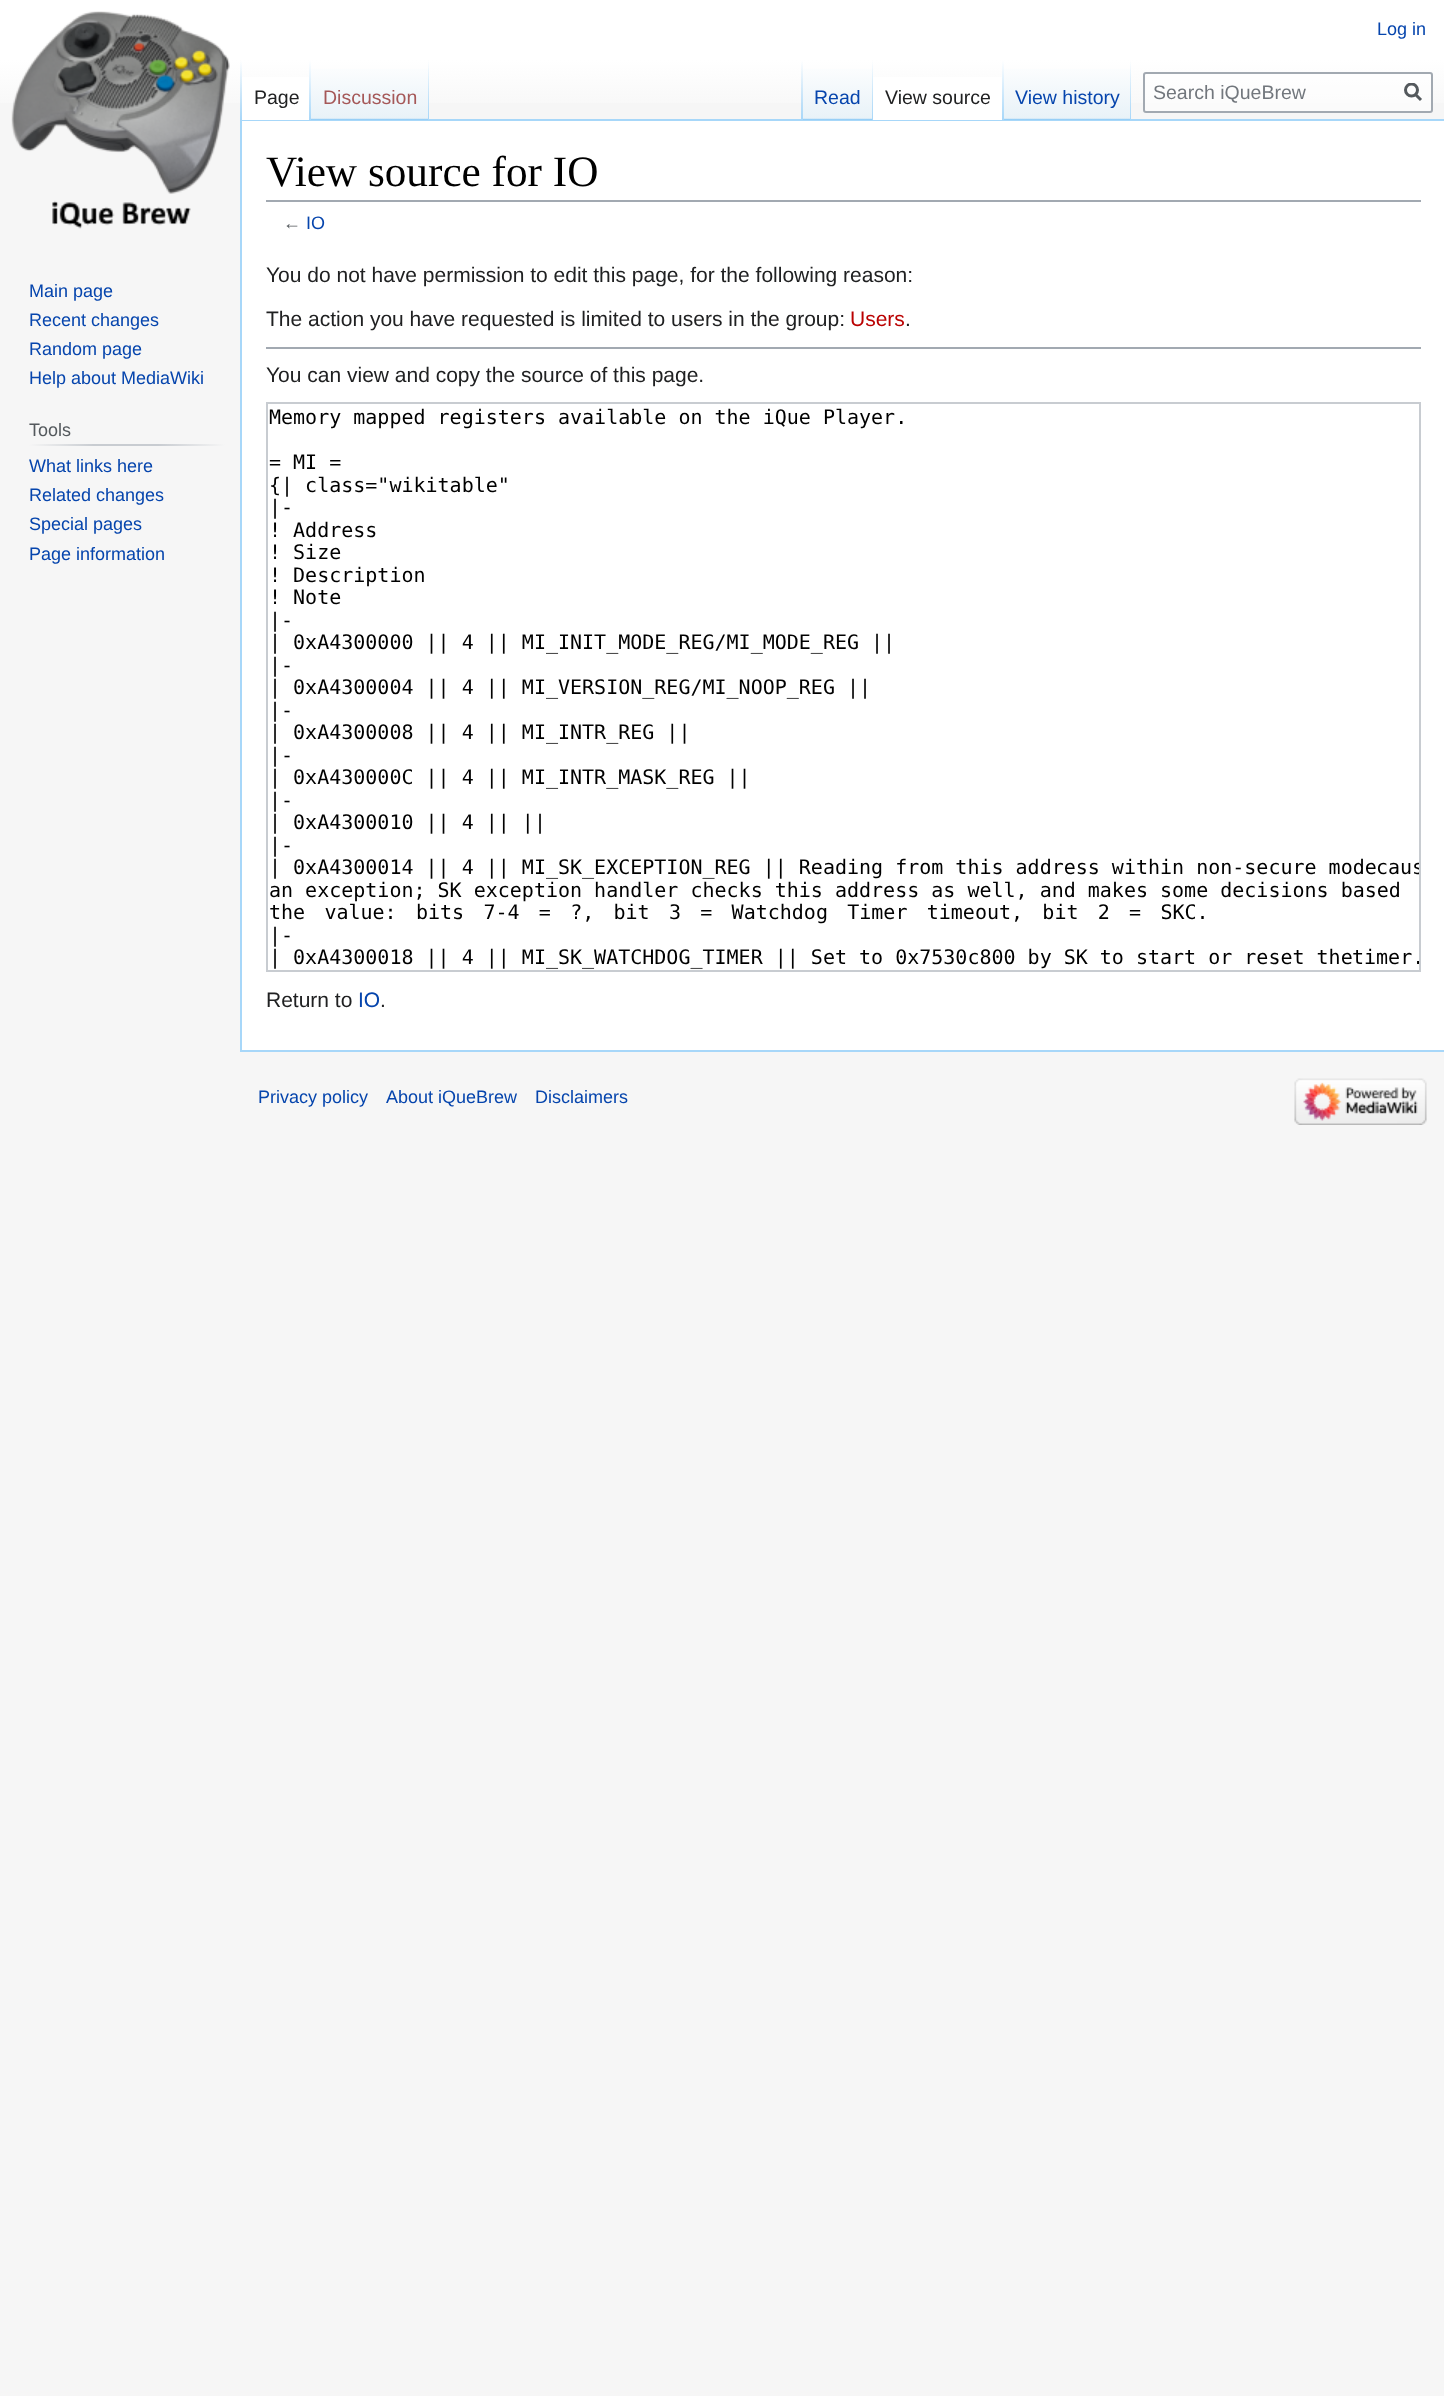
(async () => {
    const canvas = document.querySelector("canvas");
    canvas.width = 1444;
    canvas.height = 2396;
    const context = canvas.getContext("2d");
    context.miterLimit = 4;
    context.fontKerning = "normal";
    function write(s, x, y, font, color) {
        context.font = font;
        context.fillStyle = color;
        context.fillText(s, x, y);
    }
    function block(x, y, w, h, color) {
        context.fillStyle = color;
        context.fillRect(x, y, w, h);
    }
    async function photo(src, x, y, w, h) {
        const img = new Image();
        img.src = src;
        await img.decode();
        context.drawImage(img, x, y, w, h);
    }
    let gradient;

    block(0, 0, 1444, 2396, "rgb(246, 246, 246)");
    gradient = context.createLinearGradient(722, 0, 722, 120);
    gradient.addColorStop(0.5, "rgb(255, 255, 255)");
    gradient.addColorStop(1, "rgb(246, 246, 246)");
    context.fillStyle = gradient;
    context.fillRect(0, 0, 1444, 103);
    write("Log in", 1377, 35, "18px Liberation Sans", "rgb(6, 69, 173)");
    block(240, 119, 1204, 2, "rgb(167, 215, 249)");
    block(240, 1050, 1204, 2, "rgb(167, 215, 249)");
    block(240, 119, 2, 933, "rgb(167, 215, 249)");
    gradient = context.createLinearGradient(241, 60, 241, 120);
    gradient.addColorStop(0, "rgba(167, 215, 249, 0)");
    gradient.addColorStop(1, "rgb(167, 215, 249)");
    context.fillStyle = gradient;
    context.fillRect(240, 60, 2, 60);
    block(242, 77, 67, 43, "rgb(255, 255, 255)");
    gradient = context.createLinearGradient(310, 60, 310, 120);
    gradient.addColorStop(0, "rgb(255, 255, 255)");
    gradient.addColorStop(1, "rgb(167, 215, 249)");
    context.fillStyle = gradient;
    context.fillRect(309, 60, 2, 60);
    write("Page", 254, 104, "19.5px Liberation Sans", "rgb(32, 33, 34)");
    gradient = context.createLinearGradient(370, 120, 370, 60);
    gradient.addColorStop(0, "rgb(119, 193, 246)");
    gradient.addColorStop(0.03, "rgb(232, 242, 248)");
    gradient.addColorStop(1, "rgb(255, 255, 255)");
    context.fillStyle = gradient;
    context.fillRect(311, 69, 118, 51);
    gradient = context.createLinearGradient(428, 60, 428, 120);
    gradient.addColorStop(0, "rgba(167, 215, 249, 0)");
    gradient.addColorStop(1, "rgb(167, 215, 249)");
    context.fillStyle = gradient;
    context.fillRect(428, 60, 1, 60);
    write("Discussion", 323, 104, "19.5px Liberation Sans", "rgb(165, 88, 88)");
    gradient = context.createLinearGradient(802, 60, 802, 120);
    gradient.addColorStop(0, "rgba(167, 215, 249, 0)");
    gradient.addColorStop(1, "rgb(167, 215, 249)");
    context.fillStyle = gradient;
    context.fillRect(801, 60, 2, 60);
    gradient = context.createLinearGradient(838, 120, 838, 60);
    gradient.addColorStop(0, "rgb(119, 193, 246)");
    gradient.addColorStop(0.03, "rgb(232, 242, 248)");
    gradient.addColorStop(1, "rgb(255, 255, 255)");
    context.fillStyle = gradient;
    context.fillRect(803, 69, 70, 51);
    gradient = context.createLinearGradient(872, 60, 872, 120);
    gradient.addColorStop(0, "rgba(167, 215, 249, 0)");
    gradient.addColorStop(1, "rgb(167, 215, 249)");
    context.fillStyle = gradient;
    context.fillRect(872, 60, 1, 60);
    write("Read", 814, 104, "19.5px Liberation Sans", "rgb(6, 69, 173)");
    block(873, 77, 129, 43, "rgb(255, 255, 255)");
    gradient = context.createLinearGradient(1003, 60, 1003, 120);
    gradient.addColorStop(0, "rgb(255, 255, 255)");
    gradient.addColorStop(1, "rgb(167, 215, 249)");
    context.fillStyle = gradient;
    context.fillRect(1002, 60, 2, 60);
    write("View source", 885, 104, "19.5px Liberation Sans", "rgb(32, 33, 34)");
    gradient = context.createLinearGradient(1067, 120, 1067, 60);
    gradient.addColorStop(0, "rgb(119, 193, 246)");
    gradient.addColorStop(0.03, "rgb(232, 242, 248)");
    gradient.addColorStop(1, "rgb(255, 255, 255)");
    context.fillStyle = gradient;
    context.fillRect(1004, 69, 127, 51);
    gradient = context.createLinearGradient(1130, 60, 1130, 120);
    gradient.addColorStop(0, "rgba(167, 215, 249, 0)");
    gradient.addColorStop(1, "rgb(167, 215, 249)");
    context.fillStyle = gradient;
    context.fillRect(1130, 60, 1, 60);
    write("View history", 1015, 104, "19.5px Liberation Sans", "rgb(6, 69, 173)");
    context.fillStyle = "rgba(255, 255, 255, 0.5)";
    context.beginPath();
    context.roundRect(1144, 73, 288, 39, 2);
    context.fill();
    context.strokeStyle = "rgb(162, 169, 177)";
    context.lineWidth = 2;
    context.stroke();
    write("Search iQueBrew", 1153, 99, "19.5px Liberation Sans", "rgb(114, 119, 125)");
    context.beginPath();
    context.moveTo(1421, 100);
    context.lineTo(1415, 94);
    context.strokeStyle = "rgb(84, 89, 93)";
    context.lineWidth = 3;
    context.stroke();
    context.save();
    context.beginPath();
    context.rect(1404, 83, 18, 19);
    context.clip();
    context.beginPath();
    context.arc(1411.5, 90, 6, 0, Math.PI * 2);
    context.stroke();
    context.restore();
    await photo("media/1.png", 11, 11, 219, 218);
    write("Main page", 29, 297, "18px Liberation Sans", "rgb(6, 69, 173)");
    write("Recent changes", 29, 326, "18px Liberation Sans", "rgb(6, 69, 173)");
    write("Random page", 29, 355, "18px Liberation Sans", "rgb(6, 69, 173)");
    write("Help about MediaWiki", 29, 384, "18px Liberation Sans", "rgb(6, 69, 173)");
    gradient = context.createLinearGradient(29, 445, 225, 445);
    gradient.addColorStop(0, "rgb(246, 246, 246)");
    gradient.addColorStop(0.33, "rgb(200, 204, 209)");
    gradient.addColorStop(0.66, "rgb(200, 204, 209)");
    gradient.addColorStop(1, "rgb(246, 246, 246)");
    context.fillStyle = gradient;
    context.fillRect(29, 444, 196, 2);
    write("Tools", 29, 436, "18px Liberation Sans", "rgb(84, 89, 93)");
    write("What links here", 29, 472, "18px Liberation Sans", "rgb(6, 69, 173)");
    write("Related changes", 29, 501, "18px Liberation Sans", "rgb(6, 69, 173)");
    write("Special pages", 29, 530, "18px Liberation Sans", "rgb(6, 69, 173)");
    write("Page information", 29, 560, "18px Liberation Sans", "rgb(6, 69, 173)");
    block(242, 121, 1202, 929, "rgb(255, 255, 255)");
    block(266, 200, 1155, 2, "rgb(162, 169, 177)");
    write("View source for IO", 266, 186, "43.25px Liberation Serif", "rgb(0, 0, 0)");
    write("←", 283, 229, "18px Liberation Sans", "rgb(84, 89, 93)");
    write("IO", 306, 229, "18px Liberation Sans", "rgb(6, 69, 173)");
    write("You do not have permission to edit this page, for the following reason:", 266, 282, "21px Liberation Sans", "rgb(32, 33, 34)");
    write("The action you have requested is limited to users in the group:", 266, 326, "21px Liberation Sans", "rgb(32, 33, 34)");
    write("Users", 850, 326, "21px Liberation Sans", "rgb(186, 0, 0)");
    write(".", 905, 326, "21px Liberation Sans", "rgb(32, 33, 34)");
    block(266, 347, 1155, 2, "rgb(162, 169, 177)");
    write("You can view and copy the source of this page.", 266, 382, "21px Liberation Sans", "rgb(32, 33, 34)");
    context.strokeStyle = "rgb(200, 204, 209)";
    context.lineWidth = 2;
    context.strokeRect(267, 403, 1153, 568);
    write("Memory mapped registers available on the iQue Player.", 269, 424, "20px DejaVu Sans Mono", "rgb(0, 0, 0)");
    write("= MI =", 269, 469, "20px DejaVu Sans Mono", "rgb(0, 0, 0)");
    write("{| class=\"wikitable\"", 269, 492, "20px DejaVu Sans Mono", "rgb(0, 0, 0)");
    write("|-", 269, 514, "20px DejaVu Sans Mono", "rgb(0, 0, 0)");
    write("! Address", 269, 537, "20px DejaVu Sans Mono", "rgb(0, 0, 0)");
    write("! Size", 269, 559, "20px DejaVu Sans Mono", "rgb(0, 0, 0)");
    write("! Description", 269, 582, "20px DejaVu Sans Mono", "rgb(0, 0, 0)");
    write("! Note", 269, 604, "20px DejaVu Sans Mono", "rgb(0, 0, 0)");
    write("|-", 269, 627, "20px DejaVu Sans Mono", "rgb(0, 0, 0)");
    write("| 0xA4300000 || 4 || MI_INIT_MODE_REG/MI_MODE_REG ||", 269, 649, "20px DejaVu Sans Mono", "rgb(0, 0, 0)");
    write("|-", 269, 672, "20px DejaVu Sans Mono", "rgb(0, 0, 0)");
    write("| 0xA4300004 || 4 || MI_VERSION_REG/MI_NOOP_REG ||", 269, 694, "20px DejaVu Sans Mono", "rgb(0, 0, 0)");
    write("|-", 269, 717, "20px DejaVu Sans Mono", "rgb(0, 0, 0)");
    write("| 0xA4300008 || 4 || MI_INTR_REG ||", 269, 739, "20px DejaVu Sans Mono", "rgb(0, 0, 0)");
    write("|-", 269, 762, "20px DejaVu Sans Mono", "rgb(0, 0, 0)");
    write("| 0xA430000C || 4 || MI_INTR_MASK_REG ||", 269, 784, "20px DejaVu Sans Mono", "rgb(0, 0, 0)");
    write("|-", 269, 807, "20px DejaVu Sans Mono", "rgb(0, 0, 0)");
    write("| 0xA4300010 || 4 || ||", 269, 829, "20px DejaVu Sans Mono", "rgb(0, 0, 0)");
    write("|-", 269, 852, "20px DejaVu Sans Mono", "rgb(0, 0, 0)");
    write("| 0xA4300014 || 4 || MI_SK_EXCEPTION_REG || Reading from this address within non-secure mode", 269, 874, "20px DejaVu Sans Mono", "rgb(0, 0, 0)");
    context.save();
    context.beginPath();
    context.rect(267, 404, 1152, 567);
    context.clip();
    write("caus", 1376, 874, "20px DejaVu Sans Mono", "rgb(0, 0, 0)");
    context.restore();
    write("an exception; SK exception handler checks this address as well, and makes some decisions based", 269, 897, "20px DejaVu Sans Mono", "rgb(0, 0, 0)");
    context.wordSpacing = "7.25px";
    write("the value: bits 7-4 = ?, bit 3 = Watchdog Timer timeout, bit 2 = SKC.", 269, 919, "20px DejaVu Sans Mono", "rgb(0, 0, 0)");
    context.wordSpacing = "0px";
    write("|-", 269, 942, "20px DejaVu Sans Mono", "rgb(0, 0, 0)");
    write("| 0xA4300018 || 4 || MI_SK_WATCHDOG_TIMER || Set to 0x7530c800 by SK to start or reset the", 269, 964, "20px DejaVu Sans Mono", "rgb(0, 0, 0)");
    context.save();
    context.beginPath();
    context.rect(267, 404, 1152, 567);
    context.clip();
    write("timer.", 1352, 964, "20px DejaVu Sans Mono", "rgb(0, 0, 0)");
    context.restore();
    write("Return to", 266, 1007, "21px Liberation Sans", "rgb(32, 33, 34)");
    write("IO", 358, 1007, "21px Liberation Sans", "rgb(6, 69, 173)");
    write(".", 380, 1007, "21px Liberation Sans", "rgb(32, 33, 34)");
    write("Privacy policy", 258, 1103, "18px Liberation Sans", "rgb(6, 69, 173)");
    write("About iQueBrew", 386, 1103, "18px Liberation Sans", "rgb(6, 69, 173)");
    write("Disclaimers", 535, 1103, "18px Liberation Sans", "rgb(6, 69, 173)");
    await photo("media/2.png", 1294, 1078, 133, 47);
})();
